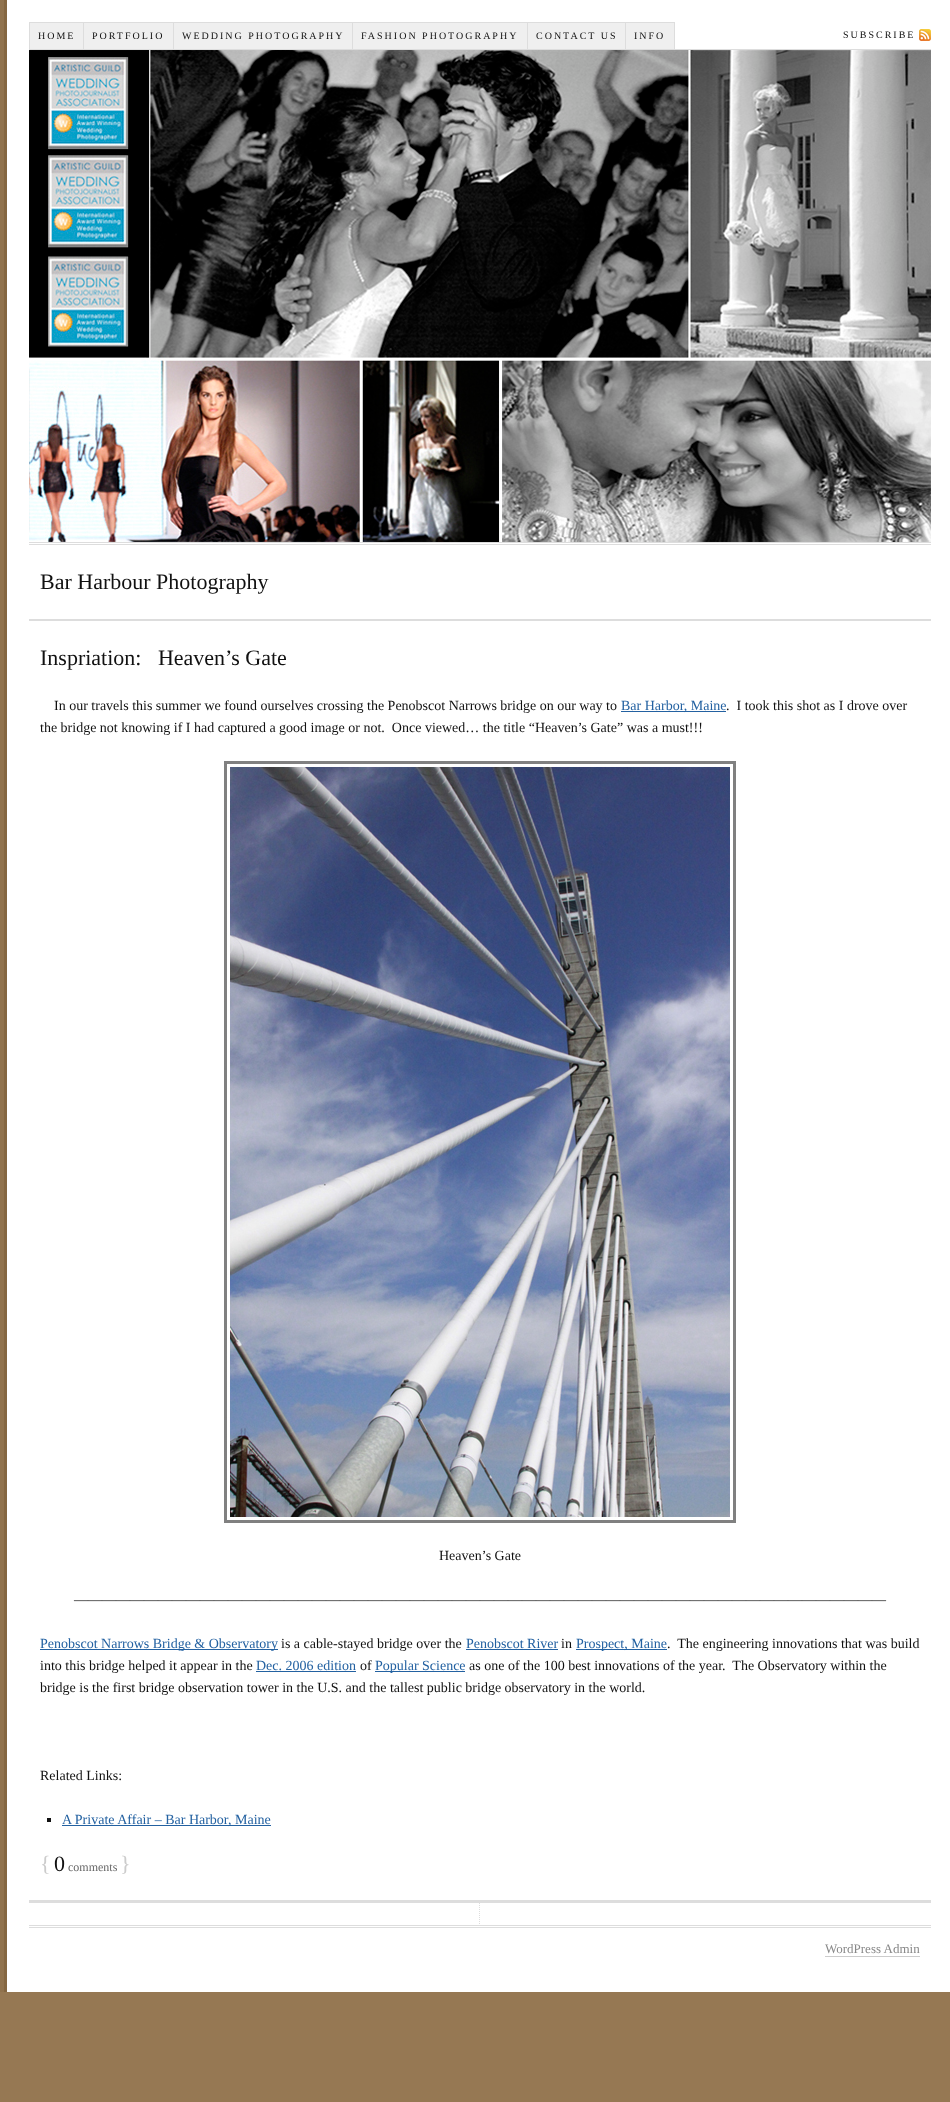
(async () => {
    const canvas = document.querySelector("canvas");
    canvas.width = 950;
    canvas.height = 2102;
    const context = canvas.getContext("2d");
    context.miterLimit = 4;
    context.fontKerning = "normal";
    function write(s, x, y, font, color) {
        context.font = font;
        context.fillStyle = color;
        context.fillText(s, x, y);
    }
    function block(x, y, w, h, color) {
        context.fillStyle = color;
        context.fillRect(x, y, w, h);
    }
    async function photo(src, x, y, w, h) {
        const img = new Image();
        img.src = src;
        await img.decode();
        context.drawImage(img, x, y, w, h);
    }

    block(0, 0, 950, 2102, "rgb(150, 120, 83)");
    block(4, 0, 3, 1992, "rgb(132, 102, 65)");
    block(0, 0, 4, 1992, "rgb(144, 114, 77)");
    block(7, 0, 943, 1992, "rgb(255, 255, 255)");
    block(29, 49, 902, 1, "rgb(221, 221, 221)");
    block(29, 22, 1, 28, "rgb(221, 221, 221)");
    block(30, 23, 53, 26, "rgb(239, 239, 239)");
    block(30, 22, 645, 1, "rgb(221, 221, 221)");
    block(83, 22, 1, 28, "rgb(221, 221, 221)");
    context.letterSpacing = "2px";
    write("HOME", 38, 39, "10px Liberation Serif", "rgb(17, 17, 17)");
    block(84, 23, 89, 26, "rgb(239, 239, 239)");
    block(173, 22, 1, 28, "rgb(221, 221, 221)");
    write("PORTFOLIO", 92, 39, "10px Liberation Serif", "rgb(17, 17, 17)");
    block(174, 23, 178, 26, "rgb(239, 239, 239)");
    block(352, 22, 1, 28, "rgb(221, 221, 221)");
    write("WEDDING PHOTOGRAPHY", 182, 39, "10px Liberation Serif", "rgb(17, 17, 17)");
    block(353, 23, 174, 26, "rgb(239, 239, 239)");
    block(527, 22, 1, 28, "rgb(221, 221, 221)");
    write("FASHION PHOTOGRAPHY", 361, 39, "10px Liberation Serif", "rgb(17, 17, 17)");
    block(528, 23, 97, 26, "rgb(239, 239, 239)");
    block(625, 22, 1, 28, "rgb(221, 221, 221)");
    write("CONTACT US", 536, 39, "10px Liberation Serif", "rgb(17, 17, 17)");
    block(626, 23, 48, 26, "rgb(239, 239, 239)");
    block(674, 22, 1, 28, "rgb(221, 221, 221)");
    write("INFO", 634, 39, "10px Liberation Serif", "rgb(17, 17, 17)");
    await photo("media/1.png", 919, 29, 12, 12);
    write("SUBSCRIBE", 843, 38, "10px Liberation Serif", "rgb(17, 17, 17)");
    await photo("media/2.png", 29, 50, 902, 492);
    block(29, 542, 902, 1, "rgb(221, 221, 221)");
    block(29, 544, 902, 1, "rgb(221, 221, 221)");
    block(29, 619, 902, 2, "rgb(221, 221, 221)");
    context.letterSpacing = "0px";
    write("Bar Harbour Photography", 40, 589, "22px Liberation Serif", "rgb(17, 17, 17)");
    write("Inspriation:   Heaven’s Gate", 40, 665, "22px Liberation Serif", "rgb(17, 17, 17)");
    write("In our travels this summer we found ourselves crossing the Penobscot Narrows bridge on our way to", 54, 710, "14px Liberation Serif", "rgb(17, 17, 17)");
    block(621, 711, 105, 1, "rgb(35, 97, 161)");
    write("Bar Harbor, Maine", 621, 710, "14px Liberation Serif", "rgb(35, 97, 161)");
    write(".  I took this shot as I drove over", 726, 710, "14px Liberation Serif", "rgb(17, 17, 17)");
    write("the bridge not knowing if I had captured a good image or not.  Once viewed… the title “Heaven’s Gate” was a must!!!", 40, 732, "14px Liberation Serif", "rgb(17, 17, 17)");
    await photo("media/3.png", 224, 761, 512, 762);
    write("Heaven’s Gate", 439, 1560, "14px Liberation Serif", "rgb(17, 17, 17)");
    write("——————————————————————————————————————————————————————————", 74, 1604, "14px Liberation Serif", "rgb(17, 17, 17)");
    block(40, 1649, 238, 1, "rgb(35, 97, 161)");
    write("Penobscot Narrows Bridge & Observatory", 40, 1648, "14px Liberation Serif", "rgb(35, 97, 161)");
    write("is a cable-stayed bridge over the", 281, 1648, "14px Liberation Serif", "rgb(17, 17, 17)");
    write("Penobscot River", 466, 1648, "14px Liberation Serif", "rgb(35, 97, 161)");
    block(466, 1649, 92, 1, "rgb(35, 97, 161)");
    write("in", 561, 1648, "14px Liberation Serif", "rgb(17, 17, 17)");
    block(576, 1649, 91, 1, "rgb(35, 97, 161)");
    write("Prospect, Maine", 576, 1648, "14px Liberation Serif", "rgb(35, 97, 161)");
    write(".  The engineering innovations that was build", 667, 1648, "14px Liberation Serif", "rgb(17, 17, 17)");
    write("into this bridge helped it appear in the", 40, 1670, "14px Liberation Serif", "rgb(17, 17, 17)");
    write("Dec. 2006 edition", 256, 1670, "14px Liberation Serif", "rgb(35, 97, 161)");
    block(256, 1671, 100, 1, "rgb(35, 97, 161)");
    write("of", 360, 1670, "14px Liberation Serif", "rgb(17, 17, 17)");
    block(375, 1671, 90, 1, "rgb(35, 97, 161)");
    write("Popular Science", 375, 1670, "14px Liberation Serif", "rgb(35, 97, 161)");
    write("as one of the 100 best innovations of the year.  The Observatory within the", 469, 1670, "14px Liberation Serif", "rgb(17, 17, 17)");
    write("bridge is the first bridge observation tower in the U.S. and the tallest public bridge observatory in the world.", 40, 1692, "14px Liberation Serif", "rgb(17, 17, 17)");
    write("Related Links:", 40, 1780, "14px Liberation Serif", "rgb(17, 17, 17)");
    block(47, 1818, 4, 4, "rgb(17, 17, 17)");
    block(62, 1825, 209, 1, "rgb(35, 97, 161)");
    write("A Private Affair – Bar Harbor, Maine", 62, 1824, "14px Liberation Serif", "rgb(35, 97, 161)");
    write("{", 40, 1871, "22px Liberation Serif", "rgb(204, 204, 204)");
    write("0", 54, 1871, "22px Liberation Serif", "rgb(17, 17, 17)");
    write("comments", 68, 1871, "12px Liberation Serif", "rgb(102, 102, 102)");
    write("}", 120, 1871, "22px Liberation Serif", "rgb(204, 204, 204)");
    block(29, 1900, 902, 3, "rgb(221, 221, 221)");
    context.beginPath();
    context.moveTo(479.5, 1903);
    context.lineTo(479.5, 1925);
    context.strokeStyle = "rgb(221, 221, 221)";
    context.setLineDash([1, 1]);
    context.stroke();
    block(29, 1925, 902, 1, "rgb(221, 221, 221)");
    block(29, 1927, 902, 1, "rgb(221, 221, 221)");
    write("WordPress Admin", 825, 1953, "13px Liberation Serif", "rgb(136, 136, 136)");
    block(825, 1956, 95, 1, "rgb(204, 204, 204)");
})();
